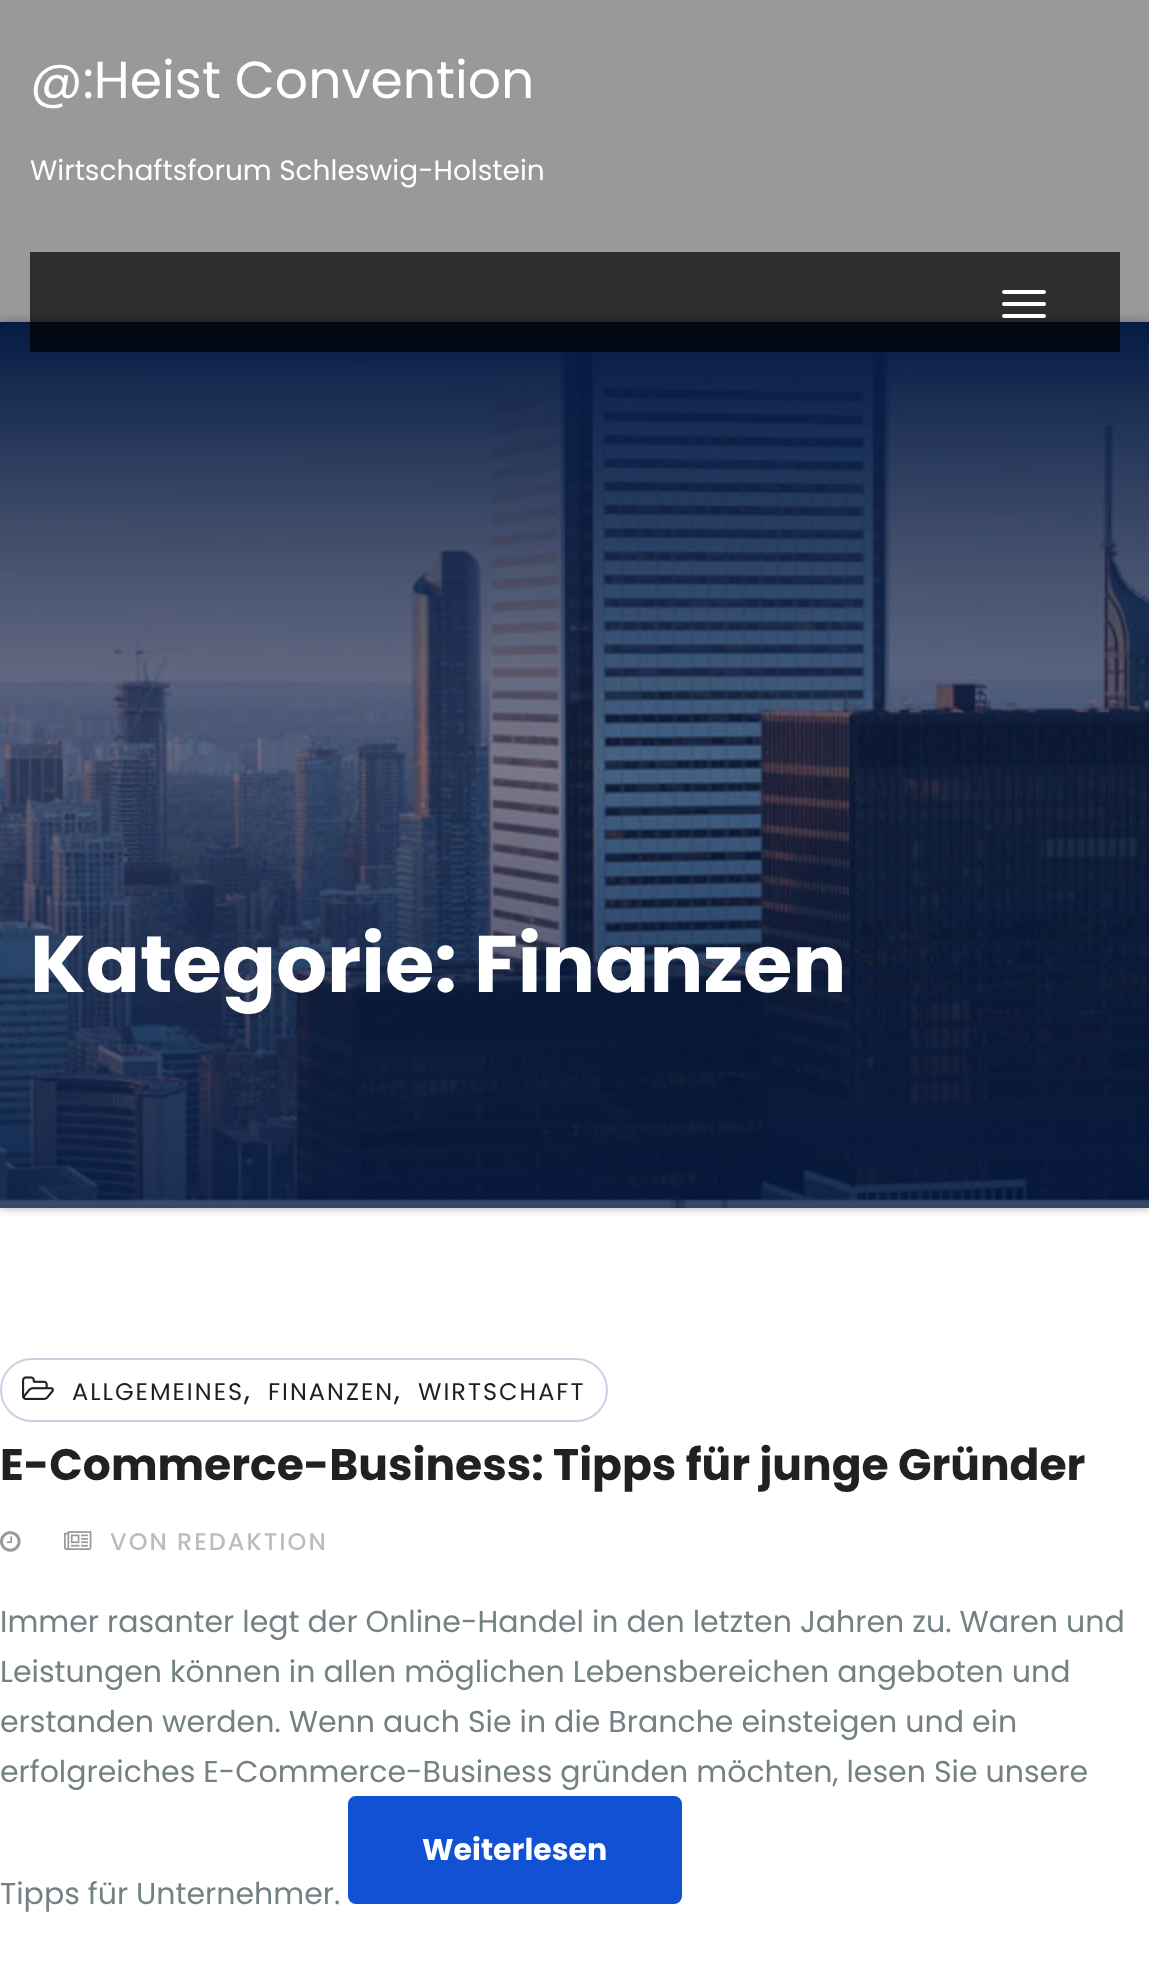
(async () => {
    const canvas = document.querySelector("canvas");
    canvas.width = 1149;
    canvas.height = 1971;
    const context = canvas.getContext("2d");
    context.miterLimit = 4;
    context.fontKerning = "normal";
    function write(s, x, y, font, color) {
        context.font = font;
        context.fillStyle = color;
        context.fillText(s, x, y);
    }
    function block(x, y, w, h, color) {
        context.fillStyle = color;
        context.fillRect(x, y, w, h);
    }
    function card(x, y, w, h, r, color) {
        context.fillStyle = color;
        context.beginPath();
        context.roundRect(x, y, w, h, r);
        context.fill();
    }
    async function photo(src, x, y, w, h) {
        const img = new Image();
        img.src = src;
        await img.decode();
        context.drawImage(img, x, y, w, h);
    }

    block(0, 0, 1149, 1971, "rgb(255, 255, 255)");
    context.fillStyle = "rgb(170, 170, 170)";
    context.filter = "blur(5px)";
    context.beginPath();
    context.rect(0, 322, 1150, 886);
    context.fill();
    context.filter = "none";
    block(0, 0, 1149, 322, "rgba(0, 0, 0, 0.4)");
    write("@:Heist Convention", 30, 98, "52px Poppins", "rgb(255, 255, 255)");
    write("Wirtschaftsforum Schleswig-Holstein", 30, 180, "28px Poppins", "rgb(255, 255, 255)");
    await photo("media/1.png", 0, 322, 1149, 886);
    block(30, 252, 1090, 100, "rgba(0, 0, 0, 0.7)");
    card(1002, 290, 44, 4, 2, "rgb(255, 255, 255)");
    card(1002, 302, 44, 4, 2, "rgb(255, 255, 255)");
    card(1002, 314, 44, 4, 2, "rgb(255, 255, 255)");
    write("Kategorie: Finanzen", 30, 992, "bold 80px Poppins", "rgb(255, 255, 255)");
    context.beginPath();
    context.roundRect(1, 1359, 606, 62, 31);
    context.strokeStyle = "rgb(198, 211, 227)";
    context.lineWidth = 2;
    context.stroke();
    await photo("media/2.png", 22, 1376, 32, 24);
    context.letterSpacing = "2px";
    write("ALLGEMEINES", 72, 1400, "24px Poppins", "rgb(33, 33, 33)");
    context.letterSpacing = "0px";
    write(",", 244, 1400, "30px Poppins", "rgb(33, 33, 33)");
    context.letterSpacing = "2px";
    write("FINANZEN", 268, 1400, "24px Poppins", "rgb(33, 33, 33)");
    context.letterSpacing = "0px";
    write(",", 394, 1400, "30px Poppins", "rgb(33, 33, 33)");
    context.letterSpacing = "2px";
    write("WIRTSCHAFT", 418, 1400, "24px Poppins", "rgb(33, 33, 33)");
    context.letterSpacing = "0px";
    write("E-Commerce-Business: Tipps für junge Gründer", 0, 1480, "bold 44px Poppins", "rgb(33, 33, 33)");
    await photo("media/3.png", 0, 1531, 21, 21);
    await photo("media/4.png", 64, 1531, 28, 19);
    context.letterSpacing = "2px";
    write("VON REDAKTION", 110, 1550, "500 24px Poppins", "rgb(189, 189, 189)");
    context.letterSpacing = "0px";
    write("Immer rasanter legt der Online-Handel in den letzten Jahren zu. Waren und", 0, 1632, "30px Poppins", "rgb(116, 129, 130)");
    write("Leistungen können in allen möglichen Lebensbereichen angeboten und", 0, 1682, "30px Poppins", "rgb(116, 129, 130)");
    write("erstanden werden. Wenn auch Sie in die Branche einsteigen und ein", 0, 1732, "30px Poppins", "rgb(116, 129, 130)");
    write("erfolgreiches E-Commerce-Business gründen möchten, lesen Sie unsere", 0, 1782, "30px Poppins", "rgb(116, 129, 130)");
    context.fillStyle = "rgb(17, 81, 211)";
    context.beginPath();
    context.roundRect(350, 1798, 330, 104, 6);
    context.fill();
    context.strokeStyle = "rgb(17, 81, 211)";
    context.lineWidth = 4;
    context.stroke();
    write("Weiterlesen", 422, 1860, "bold 30px Poppins", "rgb(255, 255, 255)");
    write("Tipps für Unternehmer.", 0, 1904, "30px Poppins", "rgb(116, 129, 130)");
})();
